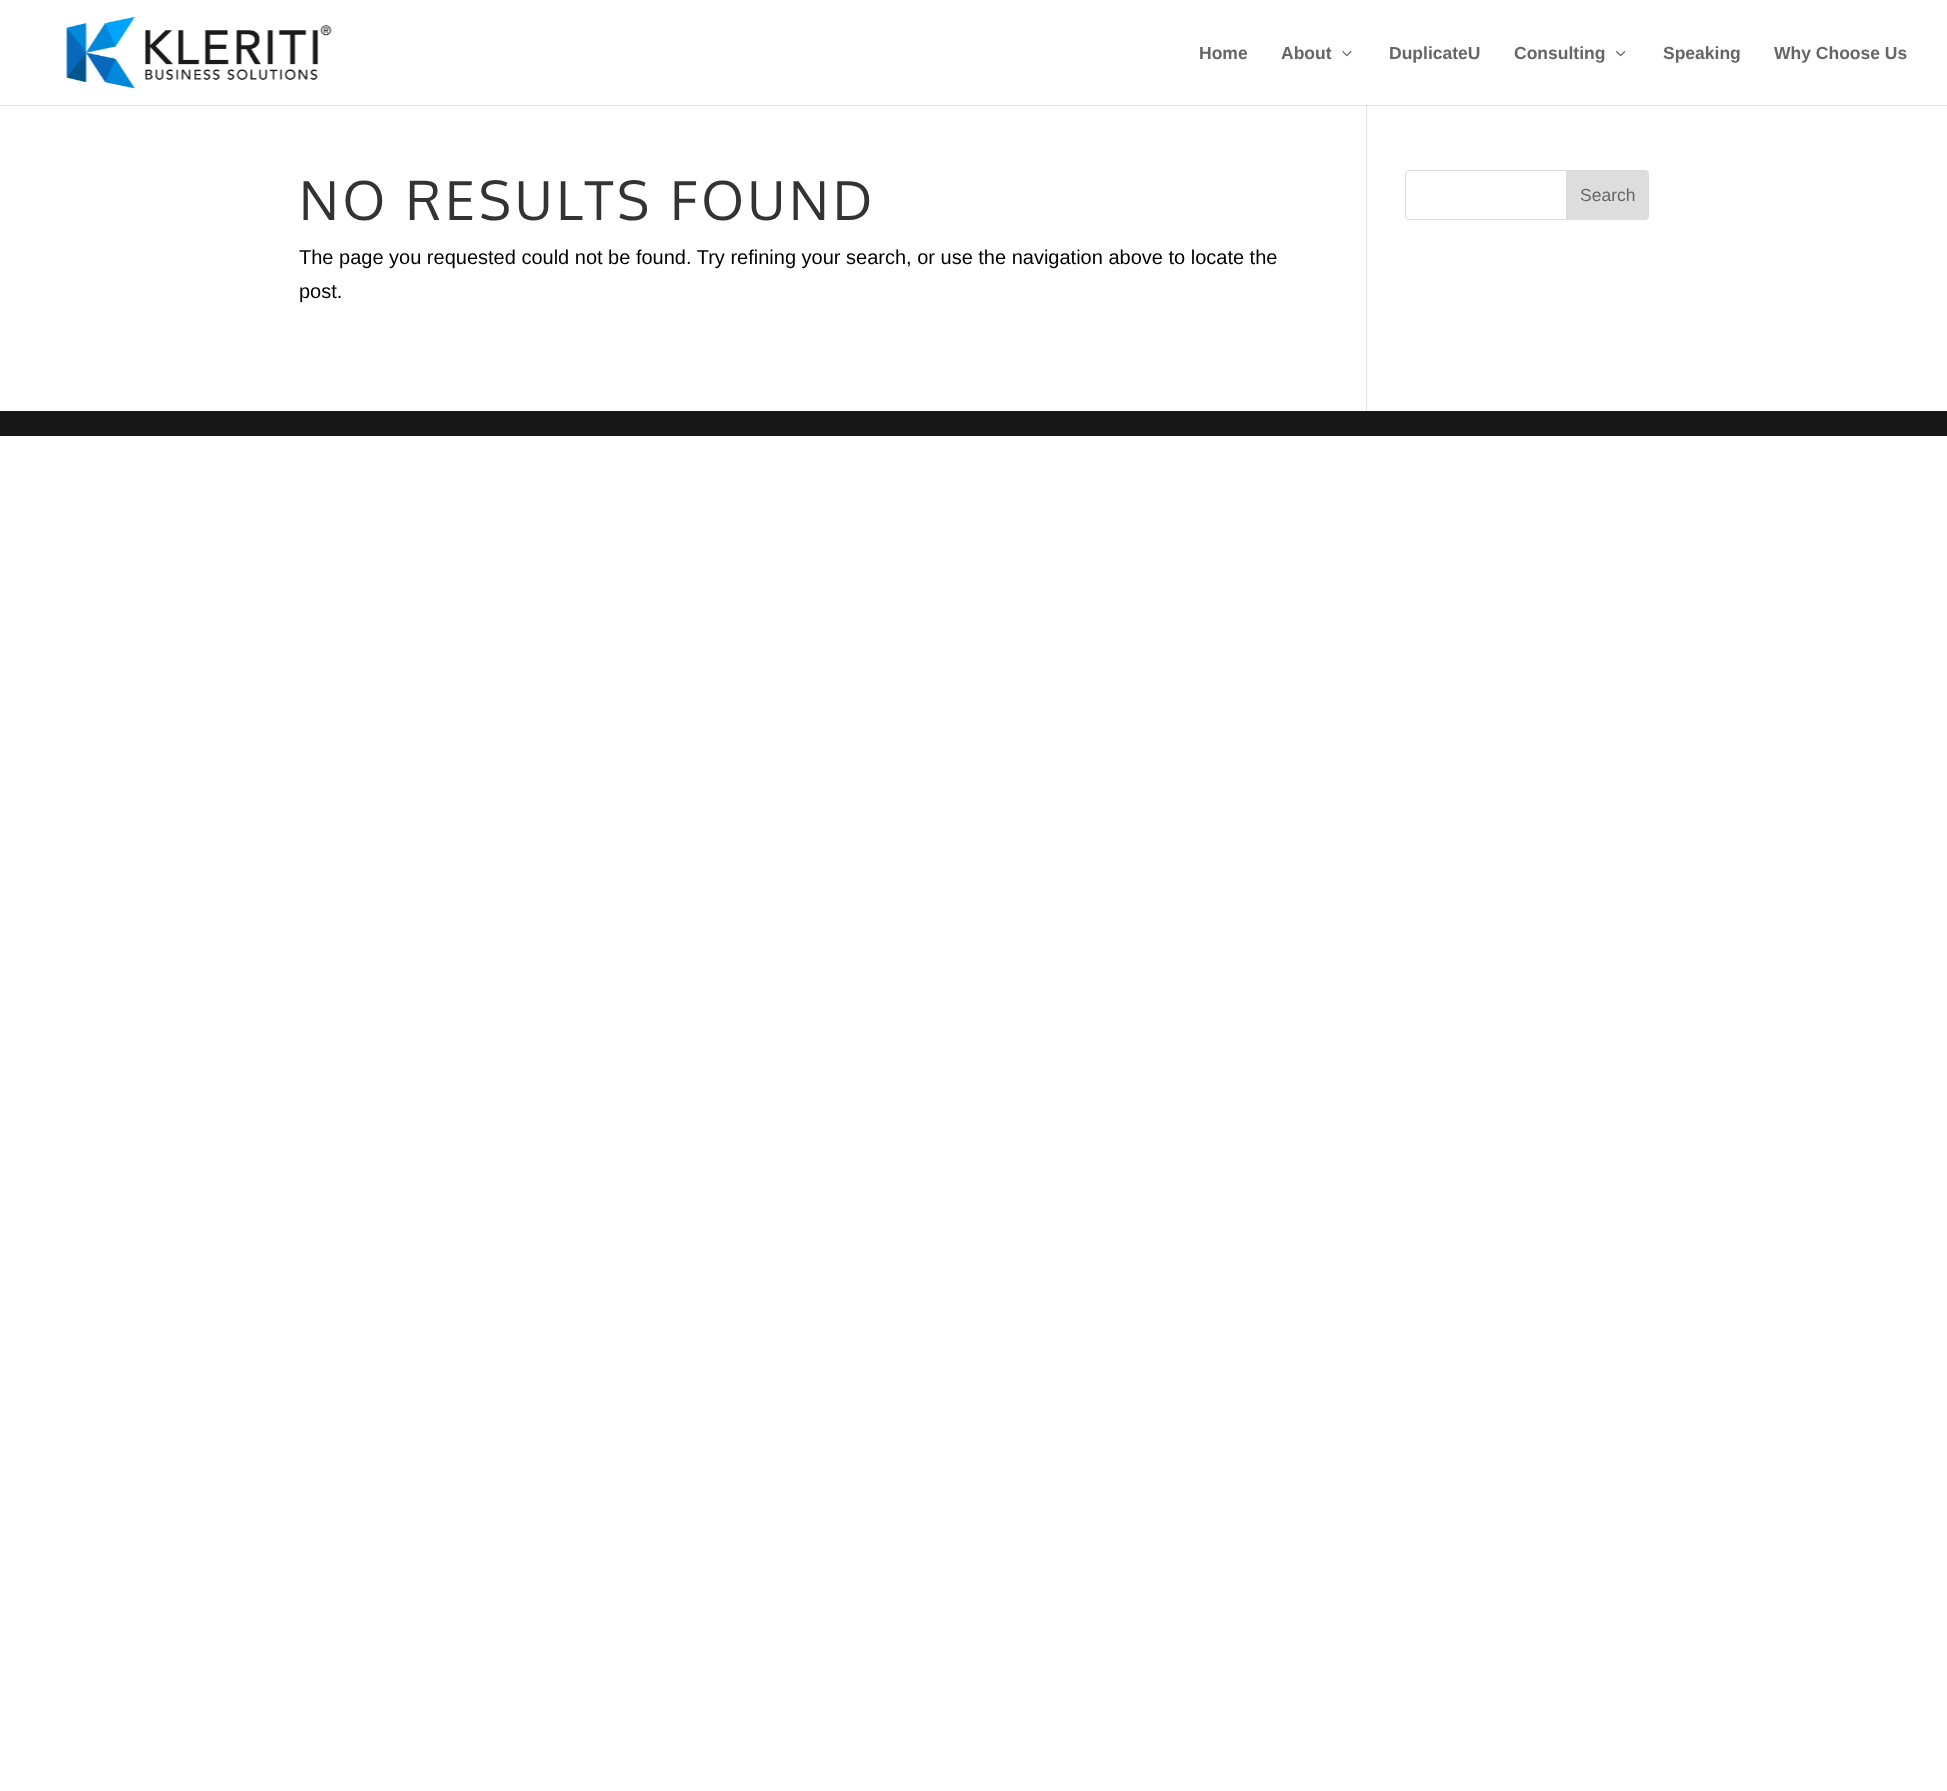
(async () => {
    const canvas = document.querySelector("canvas");
    canvas.width = 1947;
    canvas.height = 1791;
    const context = canvas.getContext("2d");
    context.miterLimit = 4;
    context.fontKerning = "normal";
    function write(s, x, y, font, color) {
        context.font = font;
        context.fillStyle = color;
        context.fillText(s, x, y);
    }
    function block(x, y, w, h, color) {
        context.fillStyle = color;
        context.fillRect(x, y, w, h);
    }
    async function photo(src, x, y, w, h) {
        const img = new Image();
        img.src = src;
        await img.decode();
        context.drawImage(img, x, y, w, h);
    }

    block(0, 0, 1947, 1791, "rgb(255, 255, 255)");
    block(1366, 98, 1, 313, "rgb(226, 226, 226)");
    context.fillStyle = "rgba(0, 0, 0, 0.1)";
    context.beginPath();
    context.moveTo(0, 105);
    context.lineTo(0, 106);
    context.lineTo(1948, 106);
    context.lineTo(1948, 1);
    context.lineTo(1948, 105);
    context.closePath();
    context.fill();
    block(1366, 98, 1, 7, "rgb(255, 255, 255)");
    await photo("media/1.png", 66, 17, 266, 72);
    write("Home", 1199, 59, "bold 17.5px Liberation Sans", "rgb(102, 102, 102)");
    write("About", 1281, 59, "bold 17.5px Liberation Sans", "rgb(102, 102, 102)");
    await photo("media/2.png", 1342, 51, 10, 6);
    write("DuplicateU", 1389, 59, "bold 17.5px Liberation Sans", "rgb(102, 102, 102)");
    write("Consulting", 1514, 59, "bold 17.5px Liberation Sans", "rgb(102, 102, 102)");
    await photo("media/3.png", 1616, 51, 10, 6);
    write("Speaking", 1663, 59, "bold 17.5px Liberation Sans", "rgb(102, 102, 102)");
    write("Why Choose Us", 1774, 59, "bold 17.5px Liberation Sans", "rgb(102, 102, 102)");
    context.letterSpacing = "3.75px";
    write("NO RESULTS FOUND", 299, 220, "53.75px Oxygen", "rgb(51, 51, 51)");
    context.letterSpacing = "0px";
    write("The page you requested could not be found. Try refining your search, or use the navigation above to locate the", 299, 264, "20px Liberation Sans", "rgb(0, 0, 0)");
    write("post.", 299, 298, "20px Liberation Sans", "rgb(0, 0, 0)");
    context.beginPath();
    context.roundRect(1405.5, 170.5, 243, 49, 3.5);
    context.strokeStyle = "rgb(221, 221, 221)";
    context.stroke();
    context.fillStyle = "rgb(221, 221, 221)";
    context.beginPath();
    context.roundRect(1566.5, 170.5, 82, 49, [0, 3.5, 3.5, 0]);
    context.fill();
    context.stroke();
    write("Search", 1580, 201, "17.5px Liberation Sans", "rgb(102, 102, 102)");
    block(0, 411, 1947, 25, "rgb(23, 23, 23)");
})();
